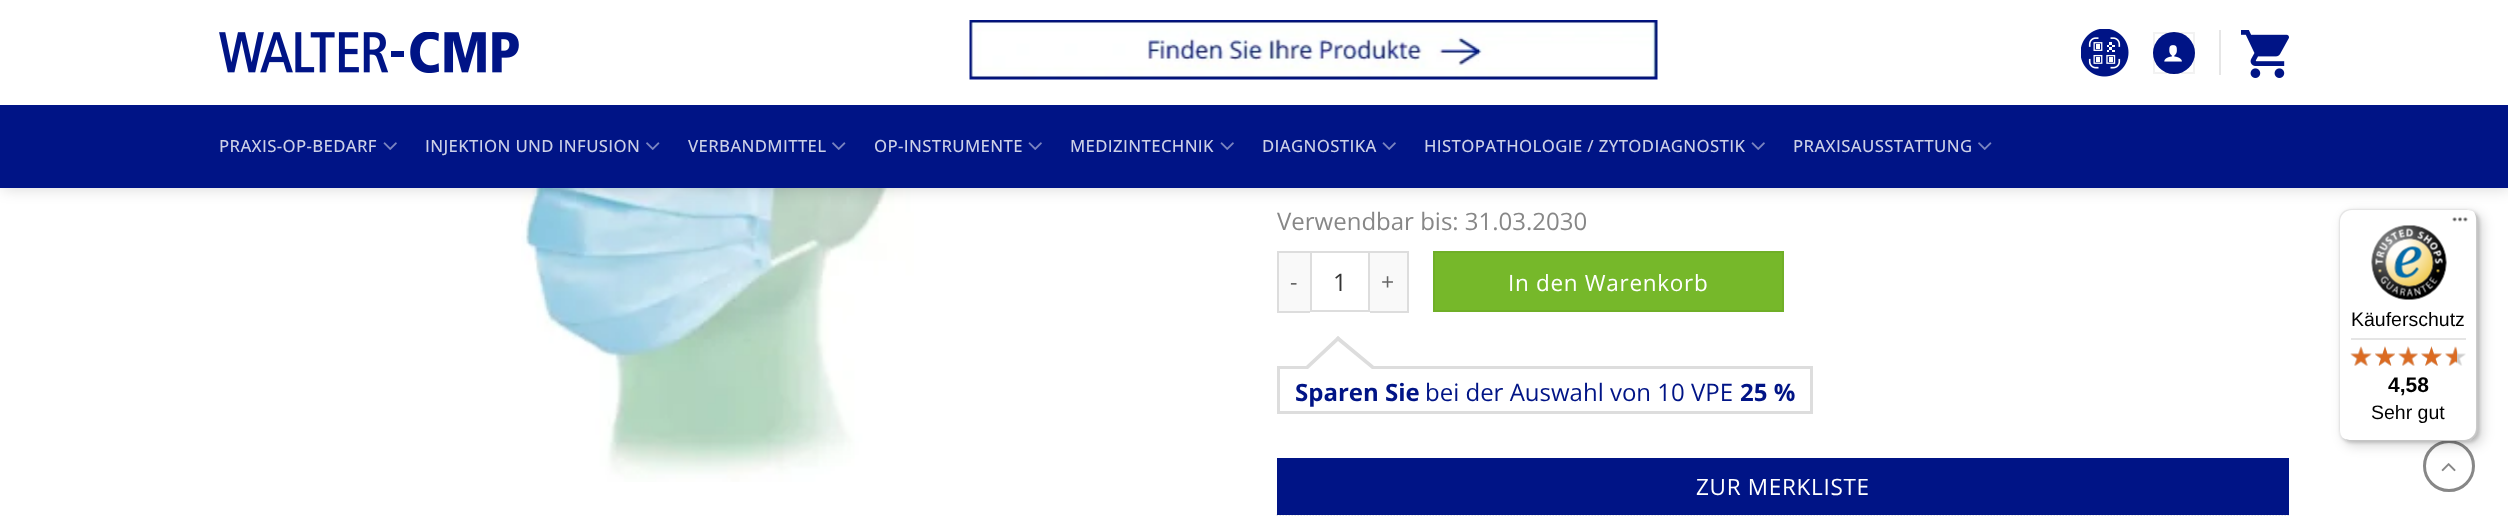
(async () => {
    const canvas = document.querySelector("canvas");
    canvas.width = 2508;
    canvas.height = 521;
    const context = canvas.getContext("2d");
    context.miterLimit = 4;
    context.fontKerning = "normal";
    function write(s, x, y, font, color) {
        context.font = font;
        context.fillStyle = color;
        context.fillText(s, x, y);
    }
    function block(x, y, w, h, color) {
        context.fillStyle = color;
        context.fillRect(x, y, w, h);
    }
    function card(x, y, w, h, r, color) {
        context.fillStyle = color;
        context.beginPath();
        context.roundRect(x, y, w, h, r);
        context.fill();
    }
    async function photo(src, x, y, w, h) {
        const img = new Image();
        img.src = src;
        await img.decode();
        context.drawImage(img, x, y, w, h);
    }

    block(0, 0, 2508, 521, "rgb(255, 255, 255)");
    await photo("media/8.png", 521, 188, 393, 294);
    context.fillStyle = "rgba(0, 0, 0, 0.15)";
    context.filter = "blur(7.5px)";
    context.beginPath();
    context.rect(2, 2, 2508, 187);
    context.fill();
    context.filter = "none";
    block(0, 0, 2508, 105, "rgb(255, 255, 255)");
    await photo("media/1.png", 219, 32, 300, 41);
    await photo("media/2.png", 969, 20, 689, 60);
    await photo("media/3.png", 2081, 29, 48, 48);
    context.fillStyle = "rgb(0, 20, 134)";
    context.beginPath();
    context.arc(2174, 53, 21, 0, Math.PI * 2);
    context.fill();
    context.strokeStyle = "rgba(0, 0, 0, 0.05)";
    context.lineWidth = 2;
    context.strokeRect(2154, 33, 40, 40);
    await photo("media/4.png", 2164, 45, 18, 17);
    block(2219, 30, 2, 45, "rgb(230, 230, 230)");
    await photo("media/5.png", 2241, 30, 48, 48);
    block(0, 105, 2508, 83, "rgb(0, 20, 134)");
    context.letterSpacing = "0.35px";
    write("PRAXIS-OP-BEDARF", 219, 152, "500 16.75px Open Sans", "rgb(204, 208, 231)");
    await photo("media/6.png", 383, 142, 14, 8);
    write("INJEKTION UND INFUSION", 425, 152, "500 16.75px Open Sans", "rgb(204, 208, 231)");
    await photo("media/7.png", 646, 142, 14, 8);
    write("VERBANDMITTEL", 688, 152, "500 16.75px Open Sans", "rgb(204, 208, 231)");
    await photo("media/7.png", 832, 142, 14, 8);
    write("OP-INSTRUMENTE", 874, 152, "500 16.75px Open Sans", "rgb(204, 208, 231)");
    await photo("media/6.png", 1028, 142, 14, 8);
    write("MEDIZINTECHNIK", 1070, 152, "500 16.75px Open Sans", "rgb(204, 208, 231)");
    await photo("media/6.png", 1220, 142, 14, 8);
    write("DIAGNOSTIKA", 1262, 152, "500 16.75px Open Sans", "rgb(204, 208, 231)");
    await photo("media/6.png", 1382, 142, 14, 8);
    write("HISTOPATHOLOGIE / ZYTODIAGNOSTIK", 1424, 152, "500 16.75px Open Sans", "rgb(204, 208, 231)");
    await photo("media/6.png", 1751, 142, 14, 8);
    write("PRAXISAUSSTATTUNG", 1793, 152, "500 16.75px Open Sans", "rgb(204, 208, 231)");
    await photo("media/7.png", 1978, 142, 14, 8);
    context.letterSpacing = "0px";
    write("Verwendbar bis: 31.03.2030", 1277, 230, "24px Open Sans", "rgb(135, 135, 135)");
    block(1279, 253, 31, 58, "rgb(249, 249, 249)");
    block(1277, 251, 33, 2, "rgb(221, 221, 221)");
    block(1277, 311, 33, 2, "rgb(221, 221, 221)");
    block(1277, 251, 2, 61, "rgb(221, 221, 221)");
    context.letterSpacing = "1px";
    write("-", 1290, 290, "23px Open Sans", "rgb(102, 102, 102)");
    context.strokeStyle = "rgb(221, 221, 221)";
    context.strokeRect(1311, 252, 58, 59);
    context.letterSpacing = "0px";
    write("1", 1333, 291, "24px Open Sans", "rgb(51, 51, 51)");
    block(1370, 253, 37, 58, "rgb(249, 249, 249)");
    block(1370, 251, 39, 2, "rgb(221, 221, 221)");
    block(1407, 251, 2, 61, "rgb(221, 221, 221)");
    block(1370, 311, 39, 2, "rgb(221, 221, 221)");
    context.letterSpacing = "1px";
    write("+", 1381, 290, "23px Open Sans", "rgb(102, 102, 102)");
    context.fillStyle = "rgb(118, 184, 42)";
    context.beginPath();
    context.rect(1434, 252, 349, 59);
    context.fill();
    context.strokeStyle = "rgb(112, 175, 40)";
    context.stroke();
    context.letterSpacing = "0.7px";
    write("In den Warenkorb", 1508, 291, "22.5px Open Sans", "rgb(255, 255, 255)");
    context.fillStyle = "rgb(221, 221, 221)";
    context.beginPath();
    context.moveTo(1813, 414);
    context.lineTo(1277, 414);
    context.lineTo(1277, 366);
    context.lineTo(1306, 366);
    context.lineTo(1338, 336);
    context.lineTo(1374, 366);
    context.lineTo(1813, 366);
    context.closePath();
    context.fill();
    context.beginPath();
    context.moveTo(1813, 414);
    context.lineTo(1277, 414);
    context.lineTo(1277, 366);
    context.lineTo(1279, 366);
    context.lineTo(1279, 412);
    context.lineTo(1812, 412);
    context.lineTo(1812, 366);
    context.lineTo(1813, 366);
    context.closePath();
    context.moveTo(1340, 338);
    context.lineTo(1338, 336);
    context.lineTo(1336, 338);
    context.closePath();
    context.fill("evenodd");
    context.fillStyle = "rgb(255, 255, 255)";
    context.beginPath();
    context.moveTo(1278, 369);
    context.lineTo(1278, 413);
    context.lineTo(1812, 413);
    context.lineTo(1812, 369);
    context.lineTo(1372, 369);
    context.lineTo(1338, 341);
    context.lineTo(1308, 369);
    context.closePath();
    context.fill();
    context.fillStyle = "rgb(221, 221, 221)";
    context.beginPath();
    context.moveTo(1278, 369);
    context.lineTo(1278, 413);
    context.lineTo(1812, 413);
    context.lineTo(1812, 369);
    context.lineTo(1810, 369);
    context.lineTo(1810, 411);
    context.lineTo(1280, 411);
    context.lineTo(1280, 369);
    context.closePath();
    context.fill();
    context.letterSpacing = "0px";
    write("Sparen Sie", 1295, 401, "bold 24px Open Sans", "rgb(0, 20, 134)");
    write("bei der Auswahl von 10 VPE", 1425, 401, "24px Open Sans", "rgb(0, 20, 134)");
    write("25 %", 1740, 401, "bold 24px Open Sans", "rgb(0, 20, 134)");
    context.beginPath();
    context.moveTo(1276.5, 515);
    context.lineTo(2289, 515);
    context.strokeStyle = "rgb(221, 221, 221)";
    context.lineWidth = 1.5;
    context.setLineDash([1.5, 1.5]);
    context.stroke();
    block(1277, 458, 1012, 57, "rgb(0, 20, 134)");
    context.letterSpacing = "0.7px";
    write("ZUR MERKLISTE", 1696, 495, "22.5px Open Sans", "rgb(255, 255, 255)");
    context.beginPath();
    context.arc(2449, 466, 24.5, 0, Math.PI * 2);
    context.strokeStyle = "rgb(135, 135, 135)";
    context.lineWidth = 3;
    context.setLineDash([]);
    context.stroke();
    await photo("media/9.png", 2441, 463, 15, 9);
    context.fillStyle = "rgba(0, 0, 0, 0.15)";
    context.filter = "blur(6px)";
    context.beginPath();
    context.roundRect(2343, 213, 140, 233, 12);
    context.fill();
    context.filter = "none";
    context.filter = "blur(1.5px)";
    context.beginPath();
    context.roundRect(2340, 210, 140, 233, 12);
    context.fill();
    context.filter = "none";
    card(2339, 209, 139, 232, 12, "rgb(255, 255, 255)");
    context.fillStyle = "rgb(229, 229, 229)";
    context.beginPath();
    context.moveTo(2352, 210);
    context.lineTo(2468, 210);
    context.lineTo(2473, 211);
    context.bezierCurveTo(2471, 210, 2468, 209, 2466, 209);
    context.lineTo(2351, 209);
    context.bezierCurveTo(2344, 209, 2339, 214, 2339, 221);
    context.lineTo(2339, 429);
    context.bezierCurveTo(2339, 432, 2340, 435, 2342, 437);
    context.bezierCurveTo(2341, 435, 2340, 433, 2340, 430);
    context.lineTo(2340, 222);
    context.bezierCurveTo(2340, 215, 2345, 210, 2352, 210);
    context.closePath();
    context.fill();
    context.fillStyle = "rgba(0, 0, 0, 0.2)";
    context.beginPath();
    context.moveTo(2345, 439);
    context.bezierCurveTo(2346, 440, 2349, 441, 2351, 441);
    context.lineTo(2466, 441);
    context.bezierCurveTo(2473, 441, 2478, 436, 2478, 429);
    context.lineTo(2478, 221);
    context.bezierCurveTo(2478, 217, 2476, 214, 2474, 212);
    context.bezierCurveTo(2475, 214, 2476, 216, 2476, 219);
    context.lineTo(2476, 428);
    context.bezierCurveTo(2476, 434, 2471, 440, 2464, 440);
    context.lineTo(2349, 440);
    context.closePath();
    context.fill();
    context.fillStyle = "rgba(50, 50, 50, 0.2)";
    context.beginPath();
    context.moveTo(2343, 438);
    context.bezierCurveTo(2345, 440, 2348, 441, 2351, 441);
    context.lineTo(2466, 441);
    context.bezierCurveTo(2473, 441, 2478, 436, 2478, 429);
    context.lineTo(2478, 221);
    context.bezierCurveTo(2478, 218, 2477, 215, 2475, 213);
    context.bezierCurveTo(2476, 215, 2477, 217, 2477, 220);
    context.lineTo(2477, 428);
    context.bezierCurveTo(2477, 435, 2472, 440, 2465, 440);
    context.lineTo(2350, 440);
    context.bezierCurveTo(2347, 440, 2345, 439, 2343, 438);
    context.closePath();
    context.fill();
    context.fillStyle = "rgba(255, 255, 255, 0.3)";
    context.beginPath();
    context.moveTo(2343, 438);
    context.bezierCurveTo(2345, 440, 2348, 441, 2351, 441);
    context.lineTo(2466, 441);
    context.bezierCurveTo(2473, 441, 2478, 436, 2478, 429);
    context.lineTo(2478, 221);
    context.bezierCurveTo(2478, 218, 2477, 215, 2475, 213);
    context.bezierCurveTo(2476, 215, 2477, 217, 2477, 220);
    context.lineTo(2477, 428);
    context.bezierCurveTo(2477, 435, 2472, 440, 2465, 440);
    context.lineTo(2350, 440);
    context.bezierCurveTo(2347, 440, 2345, 439, 2343, 438);
    context.closePath();
    context.fill();
    await photo("media/10.png", 2452, 217, 16, 5);
    await photo("media/11.png", 2371, 225, 76, 75);
    context.letterSpacing = "0px";
    write("Käuferschutz", 2351, 326, "19.5px Liberation Sans", "rgb(0, 0, 0)");
    block(2351, 338, 115, 2, "rgb(229, 229, 229)");
    await photo("media/17.png", 2351, 347, 20, 19);
    await photo("media/12.png", 2350, 346, 22, 20);
    await photo("media/18.png", 2375, 346, 20, 20);
    await photo("media/13.png", 2375, 346, 20, 20);
    await photo("media/19.png", 2398, 346, 20, 20);
    await photo("media/14.png", 2398, 346, 20, 20);
    await photo("media/20.png", 2421, 346, 21, 20);
    await photo("media/15.png", 2421, 346, 21, 20);
    await photo("media/21.png", 2445, 347, 21, 19);
    await photo("media/16.png", 2445, 346, 12, 20);
    write("4,58", 2388, 392, "bold 21px Liberation Sans", "rgb(0, 0, 0)");
    write("Sehr gut", 2371, 419, "19.5px Liberation Sans", "rgb(0, 0, 0)");
})();
